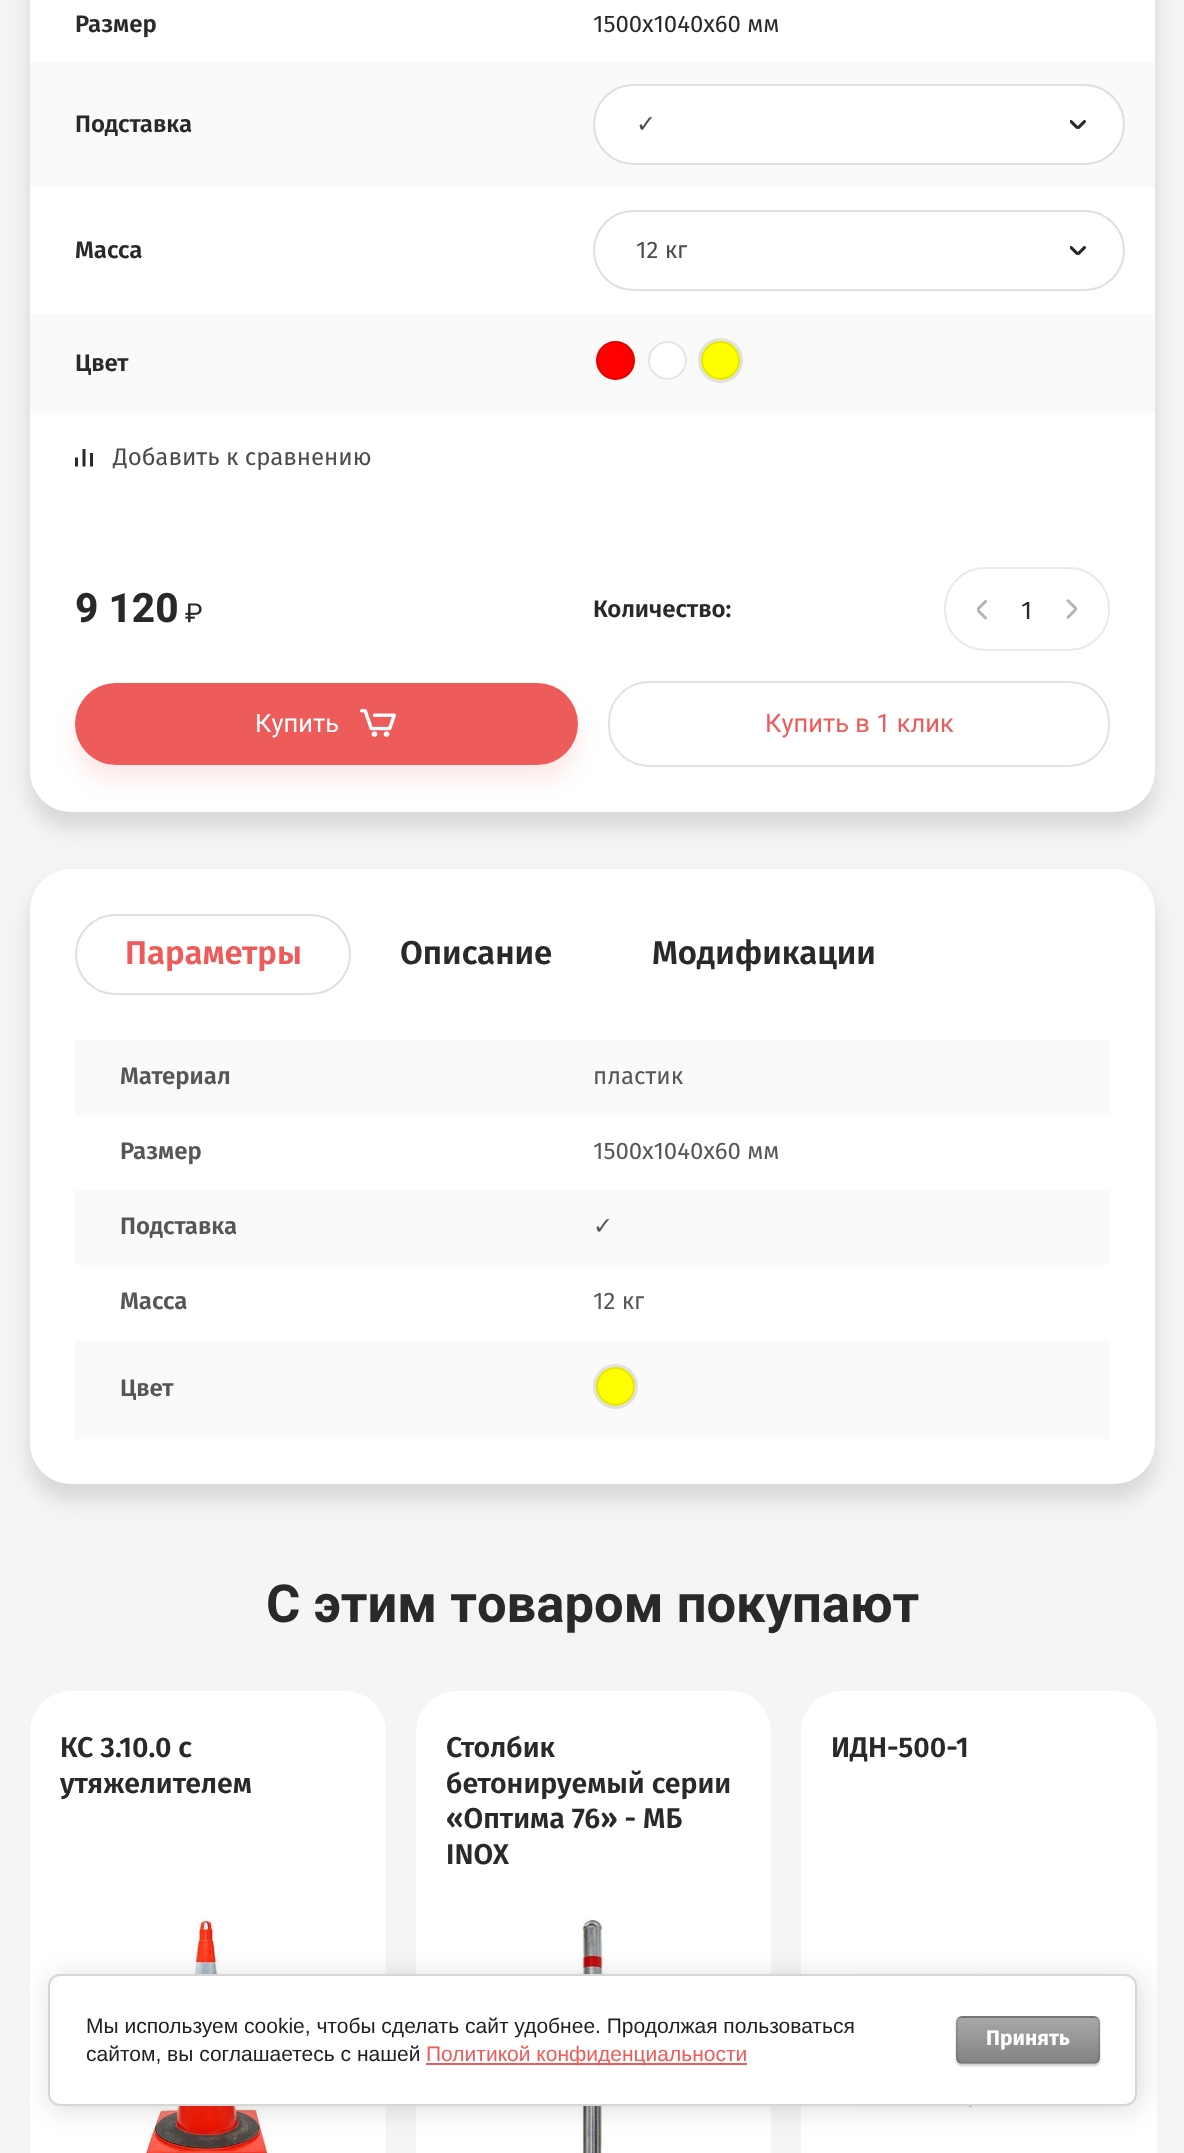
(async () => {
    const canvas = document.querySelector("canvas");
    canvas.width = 1184;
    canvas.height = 2153;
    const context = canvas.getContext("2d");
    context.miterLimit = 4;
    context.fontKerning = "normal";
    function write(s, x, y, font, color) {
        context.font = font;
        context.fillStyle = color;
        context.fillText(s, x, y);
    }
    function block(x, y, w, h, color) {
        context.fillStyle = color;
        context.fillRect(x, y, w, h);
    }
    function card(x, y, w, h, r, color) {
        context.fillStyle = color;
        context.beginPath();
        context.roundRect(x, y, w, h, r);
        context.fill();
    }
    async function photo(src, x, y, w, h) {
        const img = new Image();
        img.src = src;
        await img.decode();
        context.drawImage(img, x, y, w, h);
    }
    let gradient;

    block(0, 0, 1184, 2153, "rgb(245, 245, 245)");
    context.fillStyle = "rgba(0, 0, 0, 0.13)";
    context.filter = "blur(11px)";
    context.beginPath();
    context.roundRect(30, -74, 1125, 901, 41);
    context.fill();
    context.filter = "none";
    card(30, -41, 1125, 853, 41, "rgb(255, 255, 255)");
    write("Размер", 75, 32, "600 24px Fira Sans", "rgb(41, 41, 41)");
    write("1500х1040х60 мм", 593, 32, "24px Fira Sans", "rgb(41, 41, 41)");
    block(30, 62, 1125, 126, "rgb(250, 250, 250)");
    write("Подставка", 75, 132, "600 24px Fira Sans", "rgb(41, 41, 41)");
    context.fillStyle = "rgb(255, 255, 255)";
    context.beginPath();
    context.roundRect(594, 85, 530, 79, 39.5);
    context.fill();
    context.strokeStyle = "rgb(223, 223, 223)";
    context.lineWidth = 2;
    context.stroke();
    write("✓", 636, 132, "24px DejaVu Sans", "rgb(76, 76, 76)");
    await photo("media/1.png", 1070, 120, 16, 9);
    write("Масса", 75, 258, "600 24px Fira Sans", "rgb(41, 41, 41)");
    context.beginPath();
    context.roundRect(594, 211, 530, 79, 39.5);
    context.stroke();
    write("12 кг", 636, 258, "24px Fira Sans", "rgb(76, 76, 76)");
    await photo("media/1.png", 1070, 246, 16, 9);
    block(30, 314, 1125, 99, "rgb(250, 250, 250)");
    write("Цвет", 75, 371, "600 24px Fira Sans", "rgb(41, 41, 41)");
    context.fillStyle = "rgb(255, 0, 0)";
    context.beginPath();
    context.arc(615.5, 360.5, 19.5, 0, Math.PI * 2);
    context.fill();
    context.beginPath();
    context.arc(615.5, 360.5, 18.5, 0, Math.PI * 2);
    context.strokeStyle = "rgba(0, 0, 0, 0.1)";
    context.stroke();
    context.fillStyle = "rgb(255, 255, 255)";
    context.beginPath();
    context.arc(667.5, 360.5, 18.5, 0, Math.PI * 2);
    context.fill();
    context.strokeStyle = "rgb(229, 229, 229)";
    context.stroke();
    context.beginPath();
    context.arc(720.5, 360.5, 21, 0, Math.PI * 2);
    context.strokeStyle = "rgb(225, 225, 225)";
    context.lineWidth = 3;
    context.stroke();
    context.fillStyle = "rgb(255, 255, 0)";
    context.beginPath();
    context.arc(720.5, 360.5, 19.5, 0, Math.PI * 2);
    context.fill();
    context.beginPath();
    context.arc(720.5, 360.5, 18.5, 0, Math.PI * 2);
    context.strokeStyle = "rgba(0, 0, 0, 0.1)";
    context.lineWidth = 2;
    context.stroke();
    await photo("media/2.png", 75, 449, 18, 18);
    write("Добавить к сравнению", 113, 465, "24px Fira Sans", "rgb(76, 76, 76)");
    write("9 120", 75, 622, "800 40.5px Roboto", "rgb(41, 41, 41)");
    await photo("media/3.png", 185, 603, 17, 20);
    write("Количество:", 593, 617, "600 24px Fira Sans", "rgb(41, 41, 41)");
    context.beginPath();
    context.roundRect(945, 568, 164, 82, 40);
    context.strokeStyle = "rgb(234, 234, 234)";
    context.stroke();
    await photo("media/4.png", 977, 600, 10, 20);
    write("1", 1021, 619, "25.5px Fira Sans", "rgb(41, 41, 41)");
    await photo("media/5.png", 1066, 599, 11, 20);
    context.fillStyle = "rgba(237, 91, 91, 0.15)";
    context.filter = "blur(11px)";
    context.beginPath();
    context.roundRect(75, 698, 503, 82, 41);
    context.fill();
    context.filter = "none";
    card(75, 683, 503, 82, 41, "rgb(237, 91, 91)");
    write("Купить", 255, 732, "25.5px Roboto", "rgb(255, 255, 255)");
    await photo("media/6.png", 360, 709, 36, 28);
    context.beginPath();
    context.roundRect(609, 682, 500, 84, 40);
    context.strokeStyle = "rgb(227, 227, 227)";
    context.stroke();
    write("Купить в 1 клик", 765, 732, "25.5px Roboto", "rgb(237, 91, 91)");
    context.fillStyle = "rgba(0, 0, 0, 0.13)";
    context.filter = "blur(11px)";
    context.beginPath();
    context.roundRect(30, 884, 1125, 615, 41);
    context.fill();
    context.filter = "none";
    card(30, 869, 1125, 615, 41, "rgb(255, 255, 255)");
    context.beginPath();
    context.roundRect(76, 915, 274, 79, 39.5);
    context.strokeStyle = "rgb(223, 223, 223)";
    context.stroke();
    write("Параметры", 125, 964, "600 33px Fira Sans", "rgb(237, 91, 91)");
    write("Описание", 400, 964, "600 33px Fira Sans", "rgb(41, 41, 41)");
    write("Модификации", 652, 964, "600 33px Fira Sans", "rgb(41, 41, 41)");
    block(75, 1040, 1035, 75, "rgb(250, 250, 250)");
    write("Материал", 120, 1084, "600 24px Fira Sans", "rgb(86, 86, 86)");
    write("пластик", 593, 1084, "24px Fira Sans", "rgb(86, 86, 86)");
    write("Размер", 120, 1159, "600 24px Fira Sans", "rgb(86, 86, 86)");
    write("1500х1040х60 мм", 593, 1159, "24px Fira Sans", "rgb(86, 86, 86)");
    block(75, 1190, 1035, 75, "rgb(250, 250, 250)");
    write("Подставка", 120, 1234, "600 24px Fira Sans", "rgb(86, 86, 86)");
    write("✓", 593, 1234, "24px DejaVu Sans", "rgb(86, 86, 86)");
    write("Масса", 120, 1309, "600 24px Fira Sans", "rgb(86, 86, 86)");
    write("12 кг", 593, 1309, "24px Fira Sans", "rgb(86, 86, 86)");
    block(75, 1340, 1035, 99, "rgb(250, 250, 250)");
    write("Цвет", 120, 1396, "600 24px Fira Sans", "rgb(86, 86, 86)");
    context.beginPath();
    context.arc(615.5, 1386.5, 21, 0, Math.PI * 2);
    context.strokeStyle = "rgb(225, 225, 225)";
    context.lineWidth = 3;
    context.stroke();
    context.fillStyle = "rgb(255, 255, 0)";
    context.beginPath();
    context.arc(615.5, 1386.5, 19.5, 0, Math.PI * 2);
    context.fill();
    context.beginPath();
    context.arc(615.5, 1386.5, 18.5, 0, Math.PI * 2);
    context.strokeStyle = "rgba(0, 0, 0, 0.1)";
    context.lineWidth = 2;
    context.stroke();
    write("С этим товаром покупают", 266, 1622, "bold 52.5px Roboto", "rgb(41, 41, 41)");
    card(30, 1691, 356, 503, 41, "rgb(255, 255, 255)");
    write("КС 3.10.0 с", 60, 1757, "600 28.5px Fira Sans", "rgb(41, 41, 41)");
    write("утяжелителем", 60, 1793, "600 28.5px Fira Sans", "rgb(41, 41, 41)");
    await photo("media/7.png", 144, 1918, 124, 235);
    card(416, 1691, 355, 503, 41, "rgb(255, 255, 255)");
    write("Столбик", 446, 1757, "600 28.5px Fira Sans", "rgb(41, 41, 41)");
    write("бетонируемый серии", 446, 1793, "600 28.5px Fira Sans", "rgb(41, 41, 41)");
    write("«Оптима 76» - МБ", 446, 1828, "600 28.5px Fira Sans", "rgb(41, 41, 41)");
    write("INOX", 446, 1864, "600 28.5px Fira Sans", "rgb(41, 41, 41)");
    await photo("media/8.png", 578, 1918, 31, 235);
    card(801, 1691, 356, 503, 41, "rgb(255, 255, 255)");
    write("ИДН-500-1", 831, 1757, "600 28.5px Fira Sans", "rgb(41, 41, 41)");
    await photo("media/9.png", 855, 1972, 249, 137);
    context.fillStyle = "rgba(0, 0, 0, 0.14)";
    context.filter = "blur(13.5px)";
    context.beginPath();
    context.roundRect(51, 1977, 1089, 132, 12);
    context.fill();
    context.filter = "none";
    context.fillStyle = "rgb(255, 255, 255)";
    context.beginPath();
    context.roundRect(49, 1975, 1087, 130, 11);
    context.fill();
    context.strokeStyle = "rgb(214, 214, 214)";
    context.stroke();
    write("Мы используем cookie, чтобы сделать сайт удобнее. Продолжая пользоваться", 86, 2033, "21px Liberation Sans", "rgb(33, 33, 33)");
    write("сайтом, вы соглашаетесь с нашей", 86, 2061, "21px Liberation Sans", "rgb(33, 33, 33)");
    block(426, 2063, 321, 2, "rgb(237, 91, 91)");
    write("Политикой конфиденциальности", 426, 2061, "21px Liberation Sans", "rgb(237, 91, 91)");
    context.fillStyle = "rgba(0, 0, 0, 0.2)";
    context.filter = "blur(1px)";
    context.beginPath();
    context.roundRect(956, 2018, 144, 48, 6);
    context.fill();
    context.filter = "none";
    context.save();
    context.beginPath();
    context.roundRect(956, 2016, 144, 48, 6);
    context.clip();
    gradient = context.createLinearGradient(1028, 1973, 1028, 2018);
    gradient.addColorStop(0, "rgb(168, 168, 168)");
    gradient.addColorStop(1, "rgb(130, 130, 130)");
    context.fillStyle = gradient;
    context.fillRect(956, 2016, 144, 2);
    gradient = context.createLinearGradient(1028, 2018, 1028, 2063);
    gradient.addColorStop(0, "rgb(168, 168, 168)");
    gradient.addColorStop(1, "rgb(130, 130, 130)");
    context.fillStyle = gradient;
    context.fillRect(956, 2018, 144, 45);
    gradient = context.createLinearGradient(1028, 2063, 1028, 2108);
    gradient.addColorStop(0, "rgb(168, 168, 168)");
    gradient.addColorStop(1, "rgb(130, 130, 130)");
    context.fillStyle = gradient;
    context.fillRect(956, 2063, 144, 1);
    context.restore();
    context.beginPath();
    context.roundRect(957, 2017, 142, 46, 5);
    context.strokeStyle = "rgba(0, 0, 0, 0.1)";
    context.stroke();
    write("Принять", 986, 2045, "bold 21px Fira Sans", "rgb(255, 255, 255)");
})();
